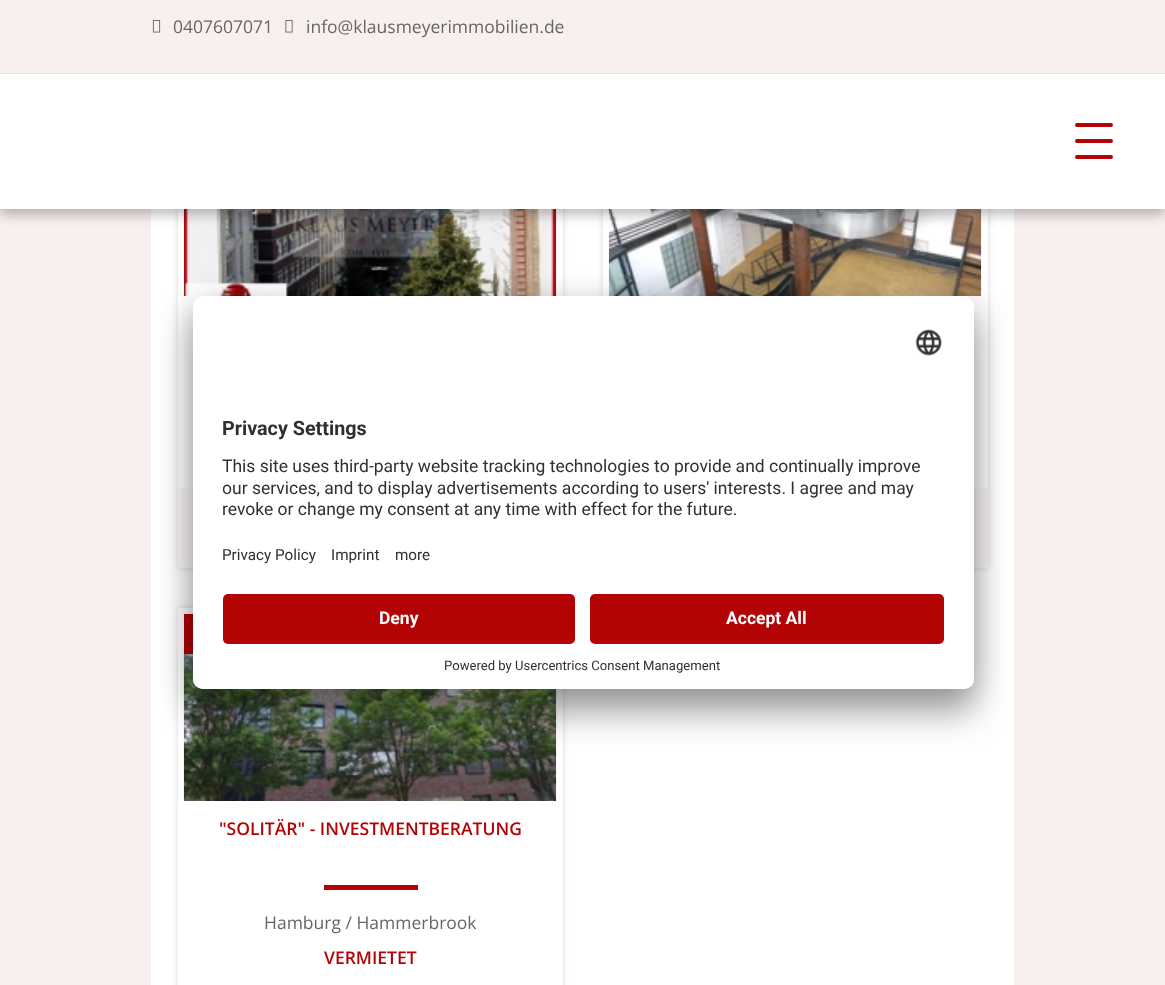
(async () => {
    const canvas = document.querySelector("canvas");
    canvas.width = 1165;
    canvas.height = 985;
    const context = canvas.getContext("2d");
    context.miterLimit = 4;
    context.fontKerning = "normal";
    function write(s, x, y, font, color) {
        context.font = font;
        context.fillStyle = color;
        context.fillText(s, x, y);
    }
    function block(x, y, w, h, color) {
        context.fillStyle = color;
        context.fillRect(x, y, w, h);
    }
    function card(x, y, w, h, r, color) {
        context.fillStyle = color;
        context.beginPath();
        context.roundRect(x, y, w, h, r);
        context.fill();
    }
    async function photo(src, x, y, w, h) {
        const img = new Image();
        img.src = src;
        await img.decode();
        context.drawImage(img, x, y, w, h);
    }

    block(0, 0, 1165, 985, "rgb(248, 239, 239)");
    block(151, 209, 863, 776, "rgb(255, 255, 255)");
    context.fillStyle = "rgba(0, 0, 0, 0.15)";
    context.filter = "blur(3px)";
    context.beginPath();
    context.rect(178, 103, 385, 465);
    context.fill();
    context.filter = "none";
    block(178, 209, 385, 279, "rgb(255, 255, 255)");
    await photo("media/4.png", 183, 209, 374, 87);
    context.fillStyle = "rgba(0, 0, 0, 0.15)";
    context.filter = "blur(3px)";
    context.beginPath();
    context.rect(603, 103, 385, 465);
    context.fill();
    context.filter = "none";
    block(603, 209, 385, 279, "rgb(255, 255, 255)");
    await photo("media/5.png", 608, 209, 374, 87);
    context.fillStyle = "rgba(0, 0, 0, 0.25)";
    context.filter = "blur(6px)";
    context.beginPath();
    context.rect(0, 80, 1165, 135);
    context.fill();
    context.filter = "none";
    block(0, 70, 1165, 3, "rgb(248, 239, 239)");
    block(0, 73, 1165, 1, "rgb(230, 230, 230)");
    await photo("media/1.png", 152, 20, 9, 13);
    write("0407607071", 173, 33, "17.5px Open Sans", "rgb(102, 102, 102)");
    await photo("media/2.png", 285, 20, 8, 13);
    write("info@klausmeyerimmobilien.de", 306, 33, "17.5px Open Sans", "rgb(102, 102, 102)");
    block(0, 74, 1165, 135, "rgb(255, 255, 255)");
    card(1075, 123, 38, 4, 2, "rgb(179, 3, 5)");
    card(1075, 139, 38, 4, 2, "rgb(179, 3, 5)");
    card(1075, 155, 38, 4, 2, "rgb(179, 3, 5)");
    block(178, 488, 15, 80, "rgb(252, 248, 248)");
    block(974, 488, 14, 80, "rgb(252, 248, 248)");
    context.fillStyle = "rgba(0, 0, 0, 0.15)";
    context.filter = "blur(3px)";
    context.beginPath();
    context.rect(178, 608, 385, 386);
    context.fill();
    context.filter = "none";
    block(178, 608, 385, 377, "rgb(255, 255, 255)");
    await photo("media/6.png", 183, 613, 374, 188);
    block(184, 614, 9, 40, "rgb(179, 3, 5)");
    context.fillStyle = "rgba(0, 0, 0, 0.3)";
    context.filter = "blur(17.5px)";
    context.beginPath();
    context.roundRect(193, 321, 781, 393, 10);
    context.fill();
    context.filter = "none";
    context.fillStyle = "rgba(0, 0, 0, 0.22)";
    context.filter = "blur(16px)";
    context.beginPath();
    context.roundRect(193, 303, 781, 392, 10);
    context.fill();
    context.filter = "none";
    card(193, 296, 781, 393, 10, "rgb(255, 255, 255)");
    context.save();
    context.beginPath();
    context.roundRect(193, 296, 781, 393, 10);
    context.clip();
    context.beginPath();
    context.roundRect(193, 296, 781, 288, [10, 10, 0, 0]);
    context.clip();
    block(193, 298, 781, 286, "rgb(255, 255, 255)");
    context.restore();
    await photo("media/3.png", 915, 329, 27, 27);
    write("Privacy Settings", 222, 435, "bold 19.75px Roboto", "rgb(48, 48, 48)");
    write("This site uses third-party website tracking technologies to provide and continually improve", 222, 472, "17.5px Roboto", "rgb(48, 48, 48)");
    context.save();
    context.beginPath();
    context.rect(223, 450, 721, 76);
    context.clip();
    write("our services, and to display advertisements according to users' interests. I agree and may", 222, 494, "17.5px Roboto", "rgb(48, 48, 48)");
    context.restore();
    write("revoke or change my consent at any time with effect for the future.", 222, 515, "17.5px Roboto", "rgb(48, 48, 48)");
    write("Privacy Policy", 222, 560, "15.25px Roboto", "rgb(48, 48, 48)");
    write("Imprint", 331, 560, "15.25px Roboto", "rgb(48, 48, 48)");
    write("more", 395, 560, "15.25px Roboto", "rgb(48, 48, 48)");
    context.fillStyle = "rgb(255, 255, 255)";
    context.beginPath();
    context.roundRect(193, 584, 781, 105, [0, 0, 10, 10]);
    context.fill();
    card(223, 594, 352, 50, 5, "rgb(179, 3, 5)");
    write("Deny", 379, 624, "bold 17.5px Roboto", "rgb(255, 255, 255)");
    card(590, 594, 354, 50, 5, "rgb(179, 3, 5)");
    write("Accept All", 726, 624, "bold 17.5px Roboto", "rgb(255, 255, 255)");
    write("Powered by Usercentrics Consent Management", 444, 670, "13.1px Roboto", "rgb(48, 48, 48)");
    write("\"SOLITÄR\" - INVESTMENTBERATUNG", 219, 835, "600 17.5px Open Sans", "rgb(179, 3, 5)");
    block(324, 885, 94, 5, "rgb(179, 3, 5)");
    write("Hamburg / Hammerbrook", 264, 929, "17.5px Open Sans", "rgb(102, 102, 102)");
    write("VERMIETET", 324, 964, "600 17.5px Open Sans", "rgb(179, 3, 5)");
})();
